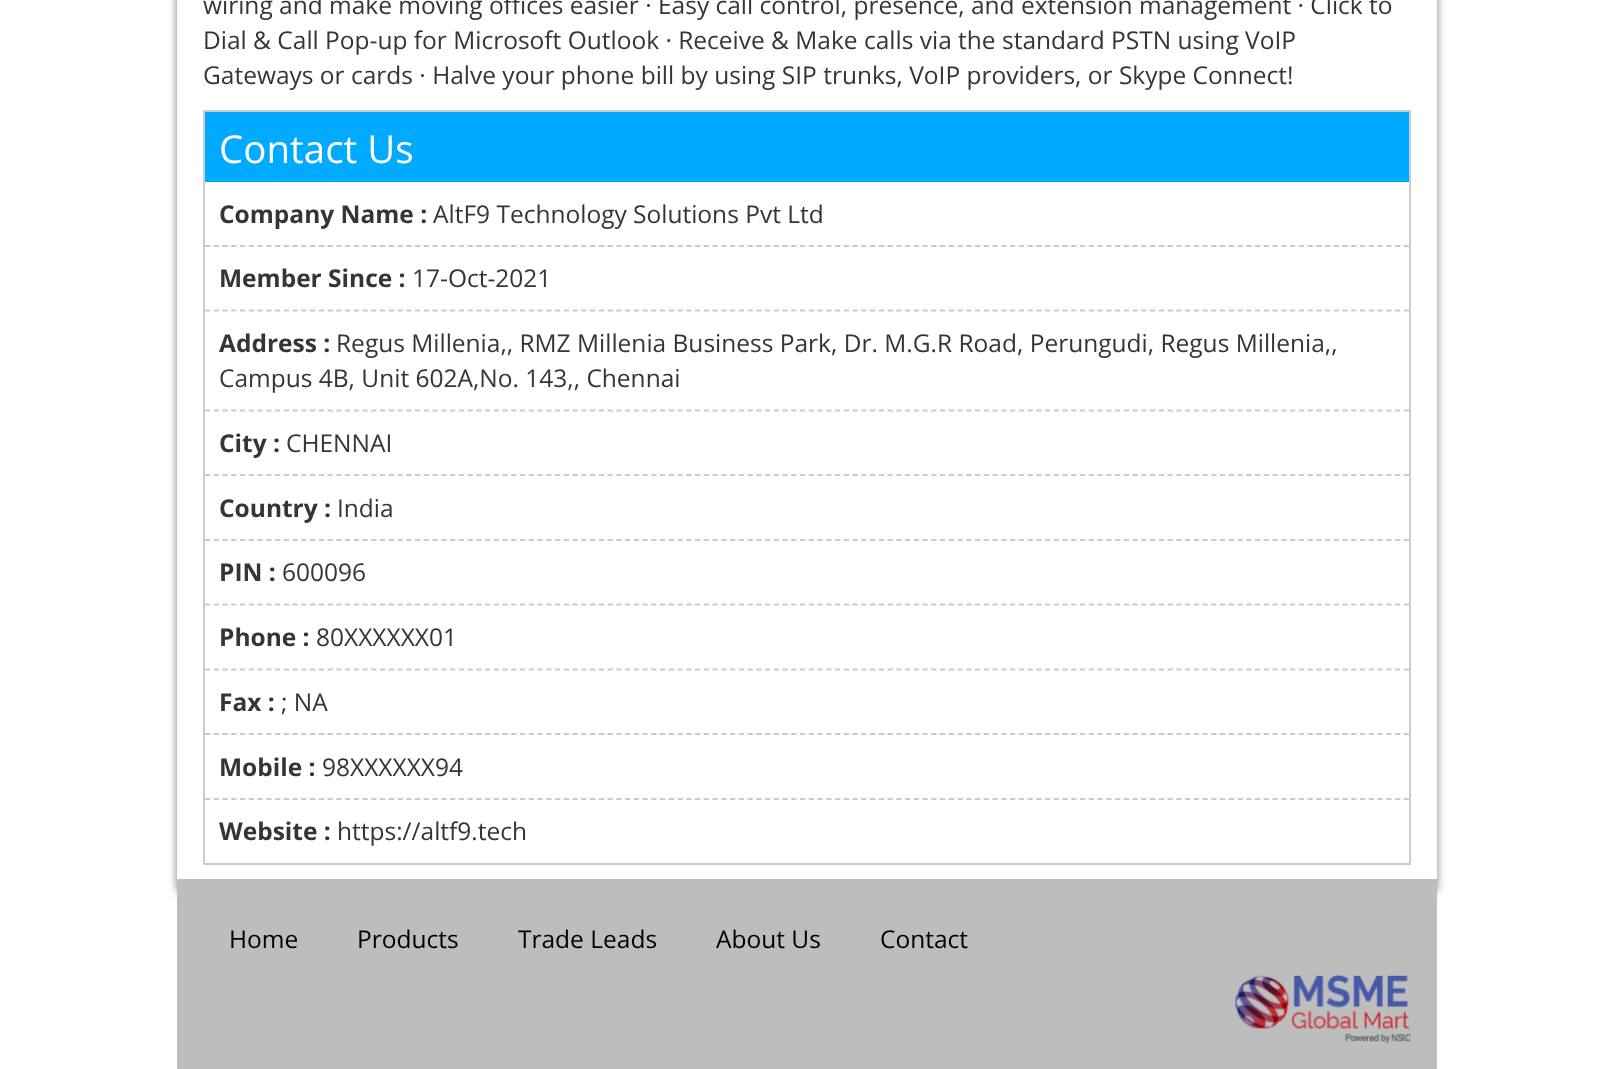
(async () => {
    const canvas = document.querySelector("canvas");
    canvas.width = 1613;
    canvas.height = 1069;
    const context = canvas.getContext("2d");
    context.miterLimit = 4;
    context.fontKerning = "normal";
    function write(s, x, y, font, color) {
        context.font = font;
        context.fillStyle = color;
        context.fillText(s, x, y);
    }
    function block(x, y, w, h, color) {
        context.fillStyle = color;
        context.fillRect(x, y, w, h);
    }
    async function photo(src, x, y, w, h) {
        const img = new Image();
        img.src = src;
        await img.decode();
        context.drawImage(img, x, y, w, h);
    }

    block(0, 0, 1613, 1069, "rgb(255, 255, 255)");
    context.save();
    context.beginPath();
    context.moveTo(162, 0);
    context.lineTo(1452, 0);
    context.lineTo(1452, 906);
    context.lineTo(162, 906);
    context.closePath();
    context.moveTo(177, -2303);
    context.lineTo(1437, -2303);
    context.lineTo(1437, 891);
    context.lineTo(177, 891);
    context.closePath();
    context.clip("evenodd");
    context.fillStyle = "rgba(0, 0, 0, 0.5)";
    context.filter = "blur(4.5px)";
    context.beginPath();
    context.rect(177, -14, 1260, 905);
    context.fill();
    context.filter = "none";
    context.restore();
    write("wiring and make moving offices easier · Easy call control, presence, and extension management · Click to", 203, 14, "24.5px Open Sans", "rgb(53, 53, 53)");
    write("Dial & Call Pop-up for Microsoft Outlook · Receive & Make calls via the standard PSTN using VoIP", 203, 49, "24.5px Open Sans", "rgb(53, 53, 53)");
    write("Gateways or cards · Halve your phone bill by using SIP trunks, VoIP providers, or Skype Connect!", 203, 84, "24.5px Open Sans", "rgb(53, 53, 53)");
    context.strokeStyle = "rgb(204, 204, 204)";
    context.lineWidth = 2;
    context.strokeRect(204, 111, 1206, 753);
    block(205, 112, 1204, 70, "rgb(0, 170, 255)");
    write("Contact Us", 219, 163, "38.5px Open Sans", "rgb(255, 255, 255)");
    context.beginPath();
    context.moveTo(205, 246);
    context.lineTo(1409, 246);
    context.lineWidth = 1.8;
    context.setLineDash([5.25, 3.5]);
    context.stroke();
    write("Company Name :", 219, 223, "bold 24.5px Open Sans", "rgb(53, 53, 53)");
    write("AltF9 Technology Solutions Pvt Ltd", 433, 223, "24.5px Open Sans", "rgb(53, 53, 53)");
    context.beginPath();
    context.moveTo(205, 310.5);
    context.lineTo(1409, 310.5);
    context.stroke();
    write("Member Since :", 219, 287, "bold 24.5px Open Sans", "rgb(53, 53, 53)");
    write("17-Oct-2021", 412, 287, "24.5px Open Sans", "rgb(53, 53, 53)");
    context.beginPath();
    context.moveTo(205, 410.5);
    context.lineTo(1409, 410.5);
    context.stroke();
    write("Address :", 219, 352, "bold 24.5px Open Sans", "rgb(53, 53, 53)");
    write("Regus Millenia,, RMZ Millenia Business Park, Dr. M.G.R Road, Perungudi, Regus Millenia,,", 336, 352, "24.5px Open Sans", "rgb(53, 53, 53)");
    write("Campus 4B, Unit 602A,No. 143,, Chennai", 219, 387, "24.5px Open Sans", "rgb(53, 53, 53)");
    context.beginPath();
    context.moveTo(205, 475);
    context.lineTo(1409, 475);
    context.stroke();
    write("City :", 219, 452, "bold 24.5px Open Sans", "rgb(53, 53, 53)");
    write("CHENNAI", 286, 452, "24.5px Open Sans", "rgb(53, 53, 53)");
    context.beginPath();
    context.moveTo(205, 540);
    context.lineTo(1409, 540);
    context.stroke();
    write("Country :", 219, 517, "bold 24.5px Open Sans", "rgb(53, 53, 53)");
    write("India", 337, 517, "24.5px Open Sans", "rgb(53, 53, 53)");
    context.beginPath();
    context.moveTo(205, 604.5);
    context.lineTo(1409, 604.5);
    context.stroke();
    write("PIN :", 219, 581, "bold 24.5px Open Sans", "rgb(53, 53, 53)");
    write("600096", 282, 581, "24.5px Open Sans", "rgb(53, 53, 53)");
    context.beginPath();
    context.moveTo(205, 669.5);
    context.lineTo(1409, 669.5);
    context.stroke();
    write("Phone :", 219, 646, "bold 24.5px Open Sans", "rgb(53, 53, 53)");
    write("80XXXXXX01", 316, 646, "24.5px Open Sans", "rgb(53, 53, 53)");
    context.beginPath();
    context.moveTo(205, 734);
    context.lineTo(1409, 734);
    context.stroke();
    write("Fax :", 219, 711, "bold 24.5px Open Sans", "rgb(53, 53, 53)");
    write("; NA", 281, 711, "24.5px Open Sans", "rgb(53, 53, 53)");
    context.beginPath();
    context.moveTo(205, 799);
    context.lineTo(1409, 799);
    context.stroke();
    write("Mobile :", 219, 776, "bold 24.5px Open Sans", "rgb(53, 53, 53)");
    write("98XXXXXX94", 322, 776, "24.5px Open Sans", "rgb(53, 53, 53)");
    write("Website :", 219, 840, "bold 24.5px Open Sans", "rgb(53, 53, 53)");
    write("https://altf9.tech", 337, 840, "24.5px Open Sans", "rgb(53, 53, 53)");
    block(177, 879, 1260, 190, "rgb(189, 189, 189)");
    write("Home", 229, 948, "24.5px Open Sans", "rgb(0, 0, 0)");
    write("Products", 357, 948, "24.5px Open Sans", "rgb(0, 0, 0)");
    write("Trade Leads", 518, 948, "24.5px Open Sans", "rgb(0, 0, 0)");
    write("About Us", 716, 948, "24.5px Open Sans", "rgb(0, 0, 0)");
    write("Contact", 880, 948, "24.5px Open Sans", "rgb(0, 0, 0)");
    await photo("media/1.png", 1235, 974, 176, 69);
})();
